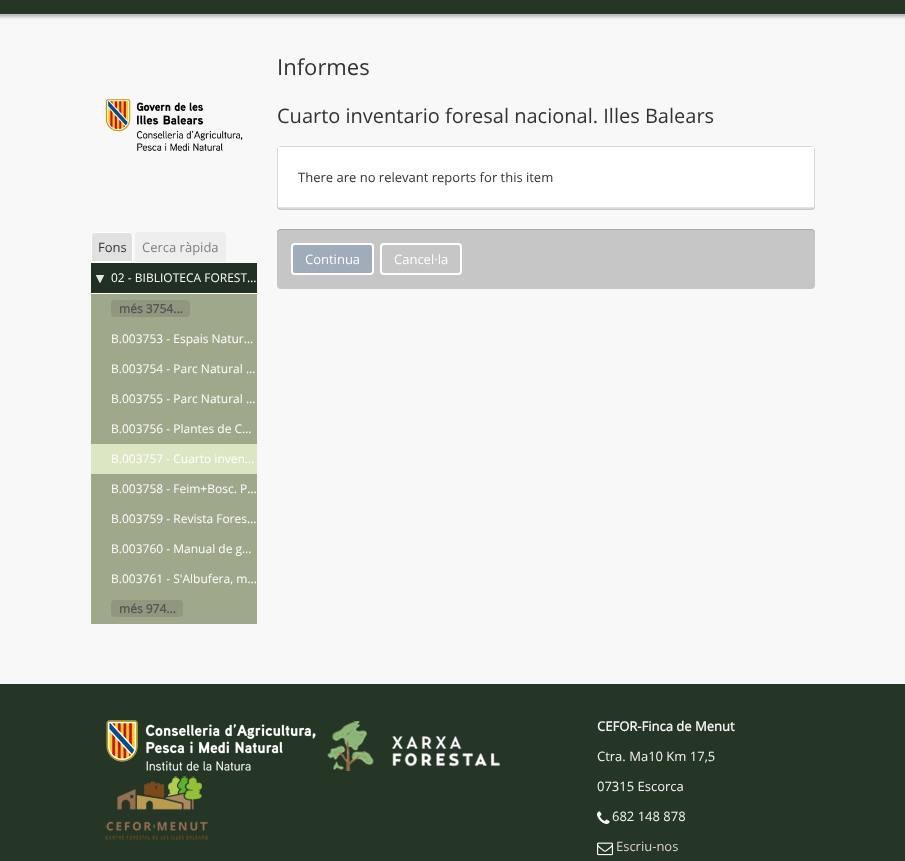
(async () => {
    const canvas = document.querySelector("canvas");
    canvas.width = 905;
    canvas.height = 861;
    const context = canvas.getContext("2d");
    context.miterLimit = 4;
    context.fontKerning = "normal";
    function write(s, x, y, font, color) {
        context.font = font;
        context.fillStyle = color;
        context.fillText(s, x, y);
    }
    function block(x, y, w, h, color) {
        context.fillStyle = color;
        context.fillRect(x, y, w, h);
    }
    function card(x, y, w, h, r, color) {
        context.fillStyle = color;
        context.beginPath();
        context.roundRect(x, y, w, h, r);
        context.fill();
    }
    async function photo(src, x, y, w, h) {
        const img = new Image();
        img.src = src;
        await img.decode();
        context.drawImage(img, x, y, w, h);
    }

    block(0, 0, 905, 861, "rgb(248, 248, 248)");
    context.fillStyle = "rgba(0, 0, 0, 0.25)";
    context.filter = "blur(1.5px)";
    context.beginPath();
    context.rect(-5, -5, 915, 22);
    context.fill();
    context.filter = "none";
    block(0, 0, 905, 13, "rgb(37, 53, 38)");
    block(0, 13, 905, 1, "rgb(51, 51, 51)");
    write("Informes", 277, 75, "22px Open Sans", "rgb(51, 51, 51)");
    write("Cuarto inventario foresal nacional. Illes Balears", 277, 123, "20px Open Sans", "rgb(51, 51, 51)");
    context.fillStyle = "rgba(0, 0, 0, 0.2)";
    context.filter = "blur(0.5px)";
    context.beginPath();
    context.roundRect(277, 147, 538, 63, 4);
    context.fill();
    context.filter = "none";
    context.beginPath();
    context.roundRect(277.5, 146.5, 537, 62, 3.5);
    context.strokeStyle = "rgb(217, 217, 217)";
    context.stroke();
    block(278, 147, 536, 60, "rgb(255, 255, 255)");
    block(278, 207, 536, 1, "rgb(229, 229, 229)");
    write("There are no relevant reports for this item", 298, 182, "13px Open Sans", "rgb(51, 51, 51)");
    card(277, 229, 538, 60, 4, "rgb(198, 198, 198)");
    context.fillStyle = "rgba(0, 0, 0, 0.15)";
    context.beginPath();
    context.moveTo(281, 230);
    context.lineTo(811, 230);
    context.bezierCurveTo(813, 230, 815, 232, 815, 234);
    context.lineTo(815, 233);
    context.bezierCurveTo(815, 231, 813, 229, 811, 229);
    context.lineTo(281, 229);
    context.bezierCurveTo(279, 229, 277, 231, 277, 233);
    context.lineTo(277, 234);
    context.bezierCurveTo(277, 232, 279, 230, 281, 230);
    context.closePath();
    context.fill();
    context.fillStyle = "rgb(161, 171, 186)";
    context.beginPath();
    context.roundRect(292, 244, 81, 30, 3);
    context.fill();
    context.strokeStyle = "rgb(255, 255, 255)";
    context.lineWidth = 2;
    context.stroke();
    write("Continua", 305, 264, "13px Open Sans", "rgb(255, 255, 255)");
    context.beginPath();
    context.roundRect(381, 244, 80, 30, 3);
    context.stroke();
    write("Cancel·la", 394, 264, "13px Open Sans", "rgb(255, 255, 255)");
    await photo("media/1.png", 105, 99, 138, 52);
    block(91, 262, 166, 1, "rgb(255, 255, 255)");
    context.fillStyle = "rgb(225, 225, 225)";
    context.beginPath();
    context.roundRect(91.5, 232.5, 41, 29, [3.5, 3.5, 0, 0]);
    context.fill();
    context.lineWidth = 1;
    context.stroke();
    write("Fons", 98, 252, "13px Open Sans", "rgb(51, 51, 51)");
    context.fillStyle = "rgb(238, 238, 238)";
    context.beginPath();
    context.roundRect(135, 232, 91, 30, [4, 4, 0, 0]);
    context.fill();
    write("Cerca ràpida", 142, 252, "13px Open Sans", "rgb(128, 128, 128)");
    block(91, 263, 166, 30, "rgb(33, 48, 34)");
    block(91, 293, 166, 1, "rgb(255, 255, 255)");
    await photo("media/2.png", 96, 275, 9, 8);
    write("02 - BIBLIOTECA FOREST…", 111, 282, "12px Open Sans", "rgb(255, 255, 255)");
    block(91, 294, 166, 150, "rgb(160, 168, 140)");
    card(111, 300, 79, 17, 4, "rgb(144, 151, 126)");
    write("més 3754...", 119, 313, "bold 12px Open Sans", "rgb(85, 85, 85)");
    write("B.003753 - Espais Natur…", 111, 343, "12px Open Sans", "rgb(255, 255, 255)");
    write("B.003754 - Parc Natural …", 111, 373, "12px Open Sans", "rgb(255, 255, 255)");
    write("B.003755 - Parc Natural …", 111, 403, "12px Open Sans", "rgb(255, 255, 255)");
    write("B.003756 - Plantes de C…", 111, 433, "12px Open Sans", "rgb(255, 255, 255)");
    block(91, 444, 166, 30, "rgb(220, 230, 194)");
    write("B.003757 - Cuarto inven…", 111, 463, "12px Open Sans", "rgb(255, 255, 255)");
    block(91, 474, 166, 150, "rgb(160, 168, 140)");
    write("B.003758 - Feim+Bosc. P…", 111, 493, "12px Open Sans", "rgb(255, 255, 255)");
    write("B.003759 - Revista Fores…", 111, 523, "12px Open Sans", "rgb(255, 255, 255)");
    write("B.003760 - Manual de g…", 111, 553, "12px Open Sans", "rgb(255, 255, 255)");
    write("B.003761 - S'Albufera, m…", 111, 583, "12px Open Sans", "rgb(255, 255, 255)");
    card(111, 600, 72, 17, 4, "rgb(144, 151, 126)");
    write("més 974...", 119, 613, "bold 12px Open Sans", "rgb(85, 85, 85)");
    block(0, 684, 905, 177, "rgb(37, 53, 38)");
    await photo("media/3.png", 106, 720, 210, 51);
    await photo("media/4.png", 327, 721, 174, 50);
    await photo("media/5.png", 105, 776, 103, 64);
    write("CEFOR-Finca de Menut", 597, 731, "bold 13px Open Sans", "rgb(245, 245, 245)");
    write("Ctra. Ma10 Km 17,5", 597, 761, "13px Open Sans", "rgb(245, 245, 245)");
    write("07315 Escorca", 597, 791, "13px Open Sans", "rgb(245, 245, 245)");
    await photo("media/6.png", 597, 811, 13, 13);
    write("682 148 878", 612, 821, "13px Open Sans", "rgb(245, 245, 245)");
    await photo("media/7.png", 597, 842, 16, 14);
    write("Escriu-nos", 616, 851, "13px Open Sans", "rgb(222, 209, 212)");
})();
